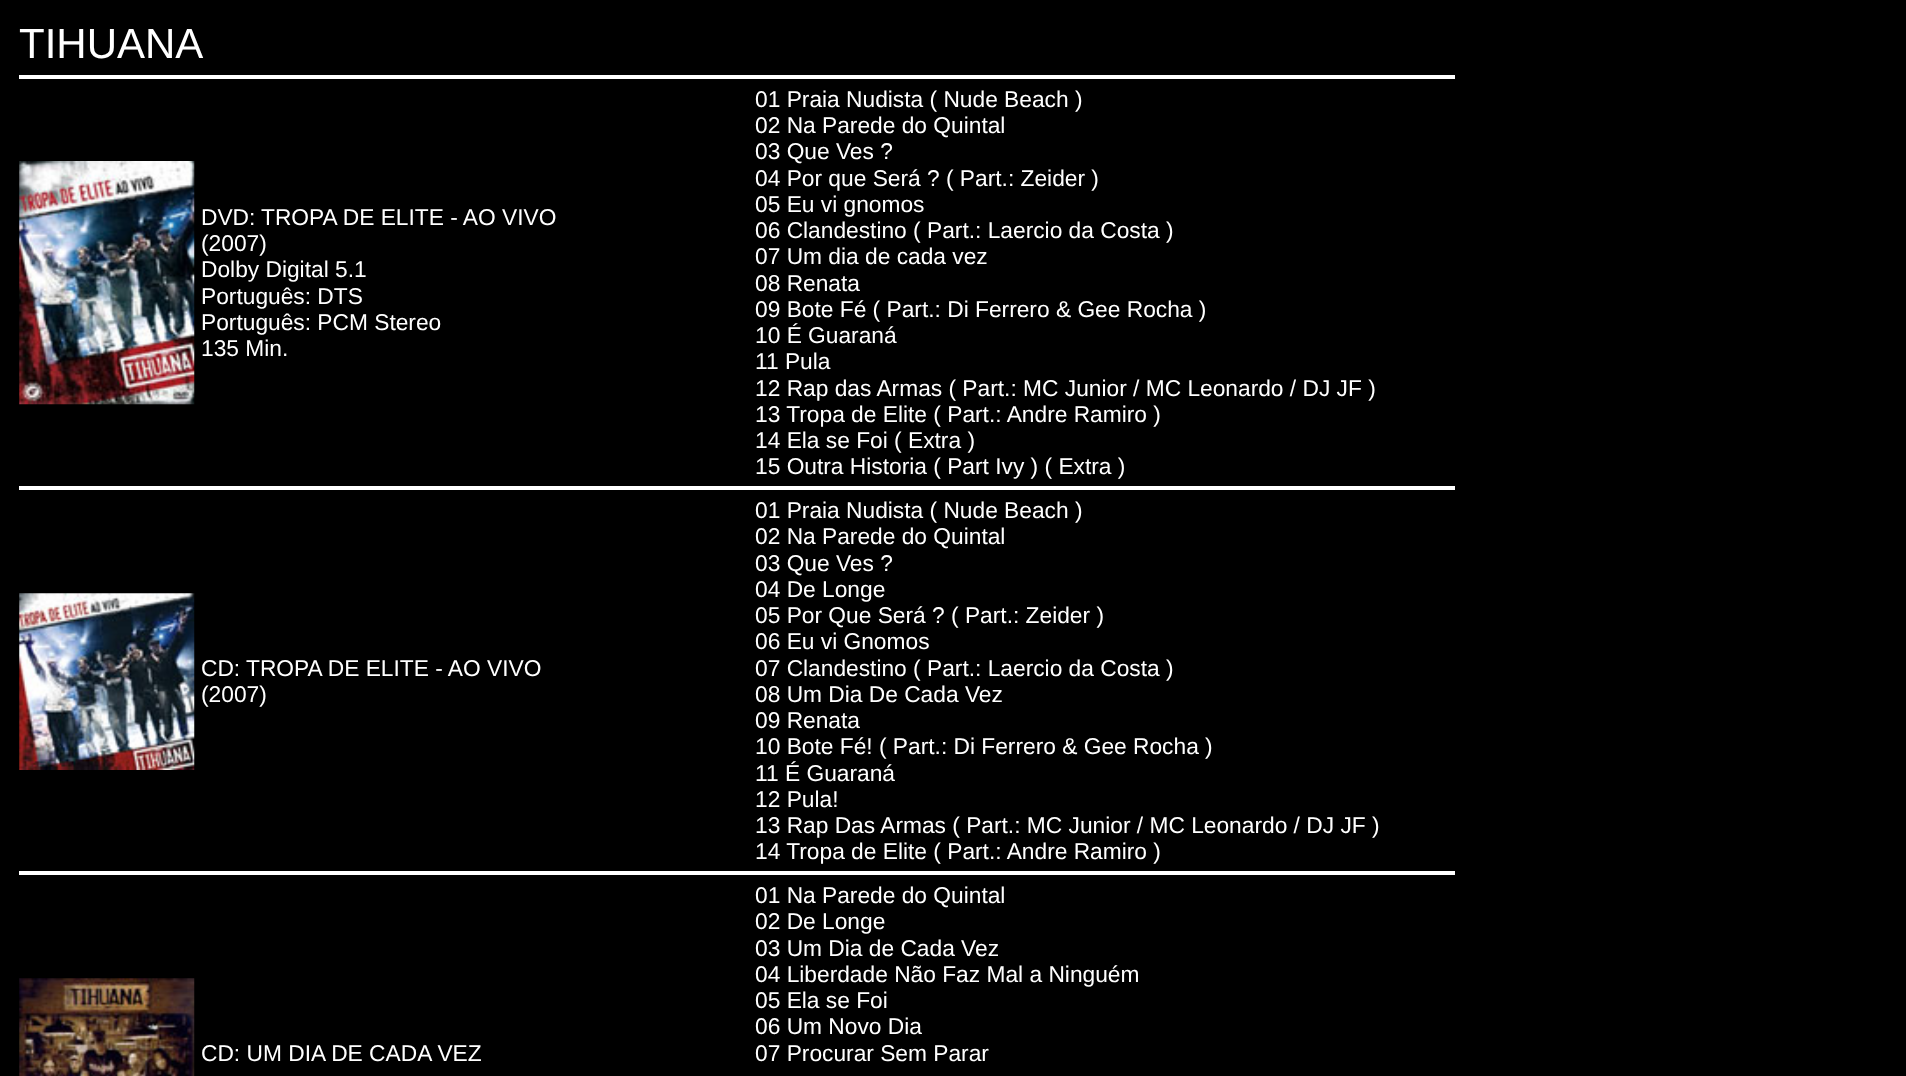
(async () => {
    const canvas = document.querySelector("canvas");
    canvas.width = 1906;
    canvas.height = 1076;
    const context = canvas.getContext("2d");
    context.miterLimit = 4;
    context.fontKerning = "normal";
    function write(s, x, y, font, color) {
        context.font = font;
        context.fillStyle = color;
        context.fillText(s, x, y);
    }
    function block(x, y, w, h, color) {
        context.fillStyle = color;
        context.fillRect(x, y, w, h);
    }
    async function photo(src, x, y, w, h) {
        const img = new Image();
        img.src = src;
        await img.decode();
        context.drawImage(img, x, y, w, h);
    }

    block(0, 0, 1906, 1076, "rgb(0, 0, 0)");
    write("TIHUANA", 19, 58, "42px Liberation Sans", "rgb(255, 255, 255)");
    block(19, 75, 1436, 4, "rgb(255, 255, 255)");
    await photo("media/1.png", 19, 161, 176, 244);
    write("DVD:", 201, 225, "22.75px Liberation Sans", "rgb(255, 255, 255)");
    write("TROPA DE ELITE - AO VIVO", 261, 225, "22.75px Liberation Sans", "rgb(255, 255, 255)");
    write("(2007)", 201, 251, "22.75px Liberation Sans", "rgb(255, 255, 255)");
    write("Dolby Digital 5.1", 201, 277, "22.75px Liberation Sans", "rgb(255, 255, 255)");
    write("Português: DTS", 201, 304, "22.75px Liberation Sans", "rgb(255, 255, 255)");
    write("Português: PCM Stereo", 201, 330, "22.75px Liberation Sans", "rgb(255, 255, 255)");
    write("135 Min.", 201, 356, "22.75px Liberation Sans", "rgb(255, 255, 255)");
    write("01 Praia Nudista ( Nude Beach )", 755, 107, "22.75px Liberation Sans", "rgb(255, 255, 255)");
    write("02 Na Parede do Quintal", 755, 133, "22.75px Liberation Sans", "rgb(255, 255, 255)");
    write("03 Que Ves ?", 755, 159, "22.75px Liberation Sans", "rgb(255, 255, 255)");
    write("04 Por que Será ? ( Part.: Zeider )", 755, 186, "22.75px Liberation Sans", "rgb(255, 255, 255)");
    write("05 Eu vi gnomos", 755, 212, "22.75px Liberation Sans", "rgb(255, 255, 255)");
    write("06 Clandestino ( Part.: Laercio da Costa )", 755, 238, "22.75px Liberation Sans", "rgb(255, 255, 255)");
    write("07 Um dia de cada vez", 755, 264, "22.75px Liberation Sans", "rgb(255, 255, 255)");
    write("08 Renata", 755, 291, "22.75px Liberation Sans", "rgb(255, 255, 255)");
    write("09 Bote Fé ( Part.: Di Ferrero & Gee Rocha )", 755, 317, "22.75px Liberation Sans", "rgb(255, 255, 255)");
    write("10 É Guaraná", 755, 343, "22.75px Liberation Sans", "rgb(255, 255, 255)");
    write("11 Pula", 755, 369, "22.75px Liberation Sans", "rgb(255, 255, 255)");
    write("12 Rap das Armas ( Part.: MC Junior / MC Leonardo / DJ JF )", 755, 396, "22.75px Liberation Sans", "rgb(255, 255, 255)");
    write("13 Tropa de Elite ( Part.: Andre Ramiro )", 755, 422, "22.75px Liberation Sans", "rgb(255, 255, 255)");
    write("14 Ela se Foi ( Extra )", 755, 448, "22.75px Liberation Sans", "rgb(255, 255, 255)");
    write("15 Outra Historia ( Part Ivy ) ( Extra )", 755, 474, "22.75px Liberation Sans", "rgb(255, 255, 255)");
    block(19, 486, 1436, 4, "rgb(255, 255, 255)");
    await photo("media/2.png", 19, 593, 176, 177);
    write("CD:", 201, 676, "22.75px Liberation Sans", "rgb(255, 255, 255)");
    write("TROPA DE ELITE - AO VIVO", 246, 676, "22.75px Liberation Sans", "rgb(255, 255, 255)");
    write("(2007)", 201, 702, "22.75px Liberation Sans", "rgb(255, 255, 255)");
    write("01 Praia Nudista ( Nude Beach )", 755, 518, "22.75px Liberation Sans", "rgb(255, 255, 255)");
    write("02 Na Parede do Quintal", 755, 544, "22.75px Liberation Sans", "rgb(255, 255, 255)");
    write("03 Que Ves ?", 755, 571, "22.75px Liberation Sans", "rgb(255, 255, 255)");
    write("04 De Longe", 755, 597, "22.75px Liberation Sans", "rgb(255, 255, 255)");
    write("05 Por Que Será ? ( Part.: Zeider )", 755, 623, "22.75px Liberation Sans", "rgb(255, 255, 255)");
    write("06 Eu vi Gnomos", 755, 649, "22.75px Liberation Sans", "rgb(255, 255, 255)");
    write("07 Clandestino ( Part.: Laercio da Costa )", 755, 676, "22.75px Liberation Sans", "rgb(255, 255, 255)");
    write("08 Um Dia De Cada Vez", 755, 702, "22.75px Liberation Sans", "rgb(255, 255, 255)");
    write("09 Renata", 755, 728, "22.75px Liberation Sans", "rgb(255, 255, 255)");
    write("10 Bote Fé! ( Part.: Di Ferrero & Gee Rocha )", 755, 754, "22.75px Liberation Sans", "rgb(255, 255, 255)");
    write("11 É Guaraná", 755, 781, "22.75px Liberation Sans", "rgb(255, 255, 255)");
    write("12 Pula!", 755, 807, "22.75px Liberation Sans", "rgb(255, 255, 255)");
    write("13 Rap Das Armas ( Part.: MC Junior / MC Leonardo / DJ JF )", 755, 833, "22.75px Liberation Sans", "rgb(255, 255, 255)");
    write("14 Tropa de Elite ( Part.: Andre Ramiro )", 755, 859, "22.75px Liberation Sans", "rgb(255, 255, 255)");
    block(19, 871, 1436, 4, "rgb(255, 255, 255)");
    await photo("media/3.png", 19, 978, 176, 98);
    write("CD: UM DIA DE CADA VEZ", 201, 1061, "22.75px Liberation Sans", "rgb(255, 255, 255)");
    write("01 Na Parede do Quintal", 755, 903, "22.75px Liberation Sans", "rgb(255, 255, 255)");
    write("02 De Longe", 755, 929, "22.75px Liberation Sans", "rgb(255, 255, 255)");
    write("03 Um Dia de Cada Vez", 755, 956, "22.75px Liberation Sans", "rgb(255, 255, 255)");
    write("04 Liberdade Não Faz Mal a Ninguém", 755, 982, "22.75px Liberation Sans", "rgb(255, 255, 255)");
    write("05 Ela se Foi", 755, 1008, "22.75px Liberation Sans", "rgb(255, 255, 255)");
    write("06 Um Novo Dia", 755, 1034, "22.75px Liberation Sans", "rgb(255, 255, 255)");
    write("07 Procurar Sem Parar", 755, 1061, "22.75px Liberation Sans", "rgb(255, 255, 255)");
})();
